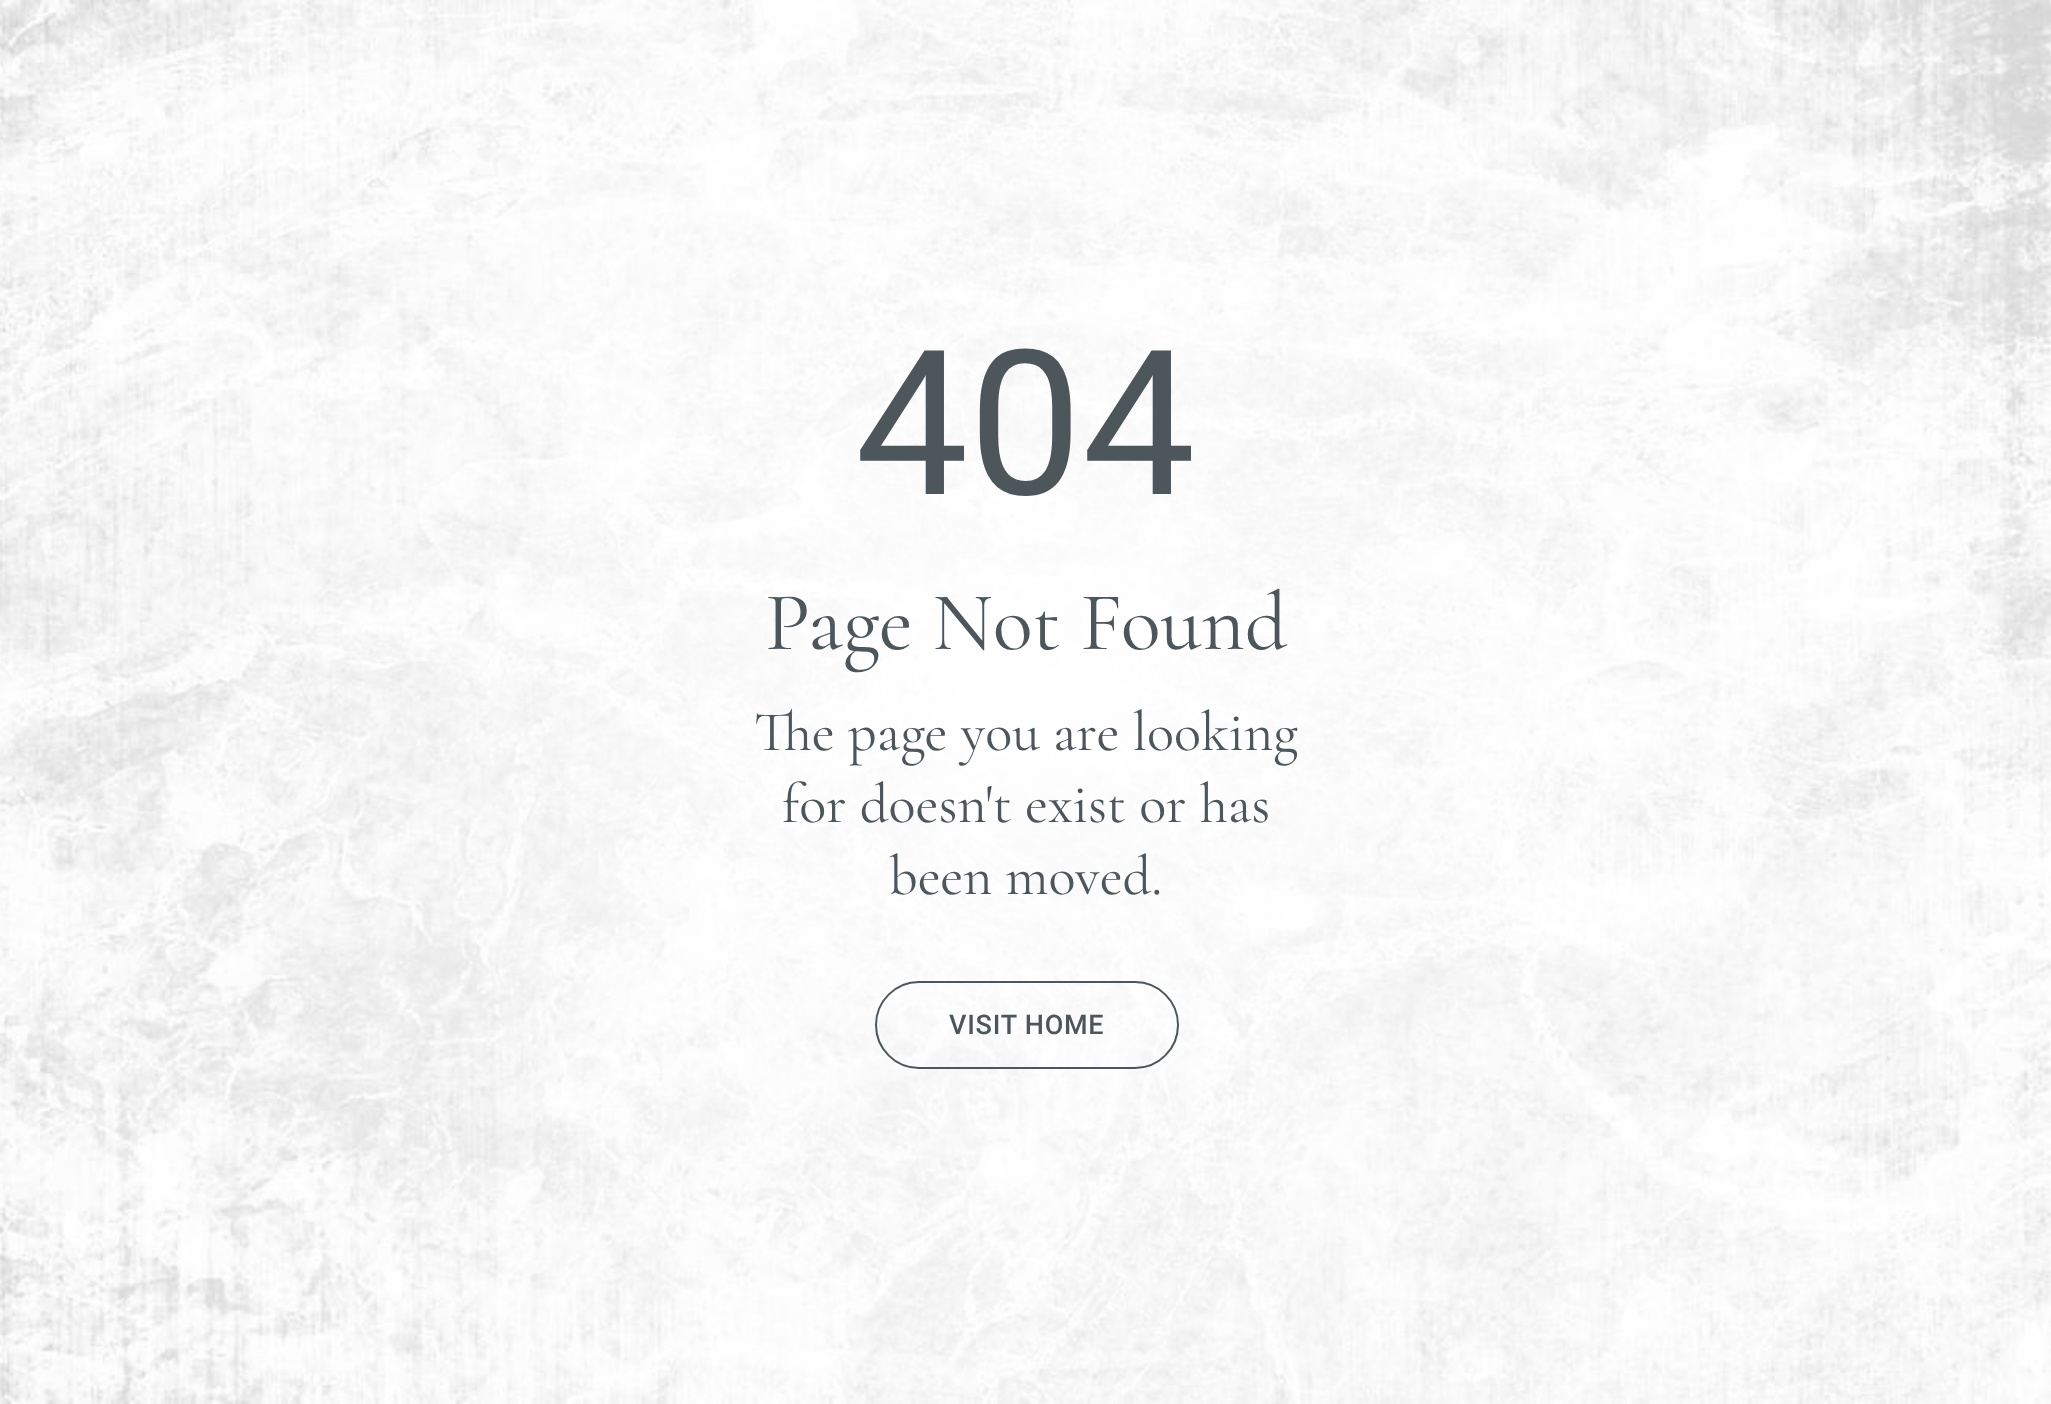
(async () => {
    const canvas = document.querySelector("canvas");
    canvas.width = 2051;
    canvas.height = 1404;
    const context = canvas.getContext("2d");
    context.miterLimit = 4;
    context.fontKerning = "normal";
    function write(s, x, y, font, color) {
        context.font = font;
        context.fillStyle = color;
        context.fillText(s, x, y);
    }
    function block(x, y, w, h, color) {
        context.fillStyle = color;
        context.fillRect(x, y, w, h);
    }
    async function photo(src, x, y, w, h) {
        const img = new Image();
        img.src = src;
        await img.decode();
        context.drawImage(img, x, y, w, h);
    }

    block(0, 0, 2051, 1404, "rgb(255, 255, 255)");
    await photo("media/1.png", 0, 0, 2051, 1404);
    write("404", 855, 494, "202px Roboto", "rgb(77, 86, 91)");
    write("Page Not Found", 765, 649, "83.25px Cormorant Garamond", "rgb(77, 86, 91)");
    write("The page you are looking", 754, 750, "56.25px Cormorant Garamond", "rgb(77, 86, 91)");
    write("for doesn't exist or has", 782, 822, "56.25px Cormorant Garamond", "rgb(77, 86, 91)");
    write("been moved.", 889, 894, "56.25px Cormorant Garamond", "rgb(77, 86, 91)");
    context.beginPath();
    context.roundRect(876, 982, 302, 86, 43);
    context.strokeStyle = "rgb(77, 86, 91)";
    context.lineWidth = 2;
    context.stroke();
    context.letterSpacing = "0.75px";
    write("VISIT HOME", 949, 1034, "500 27px Roboto", "rgb(77, 86, 91)");
})();
